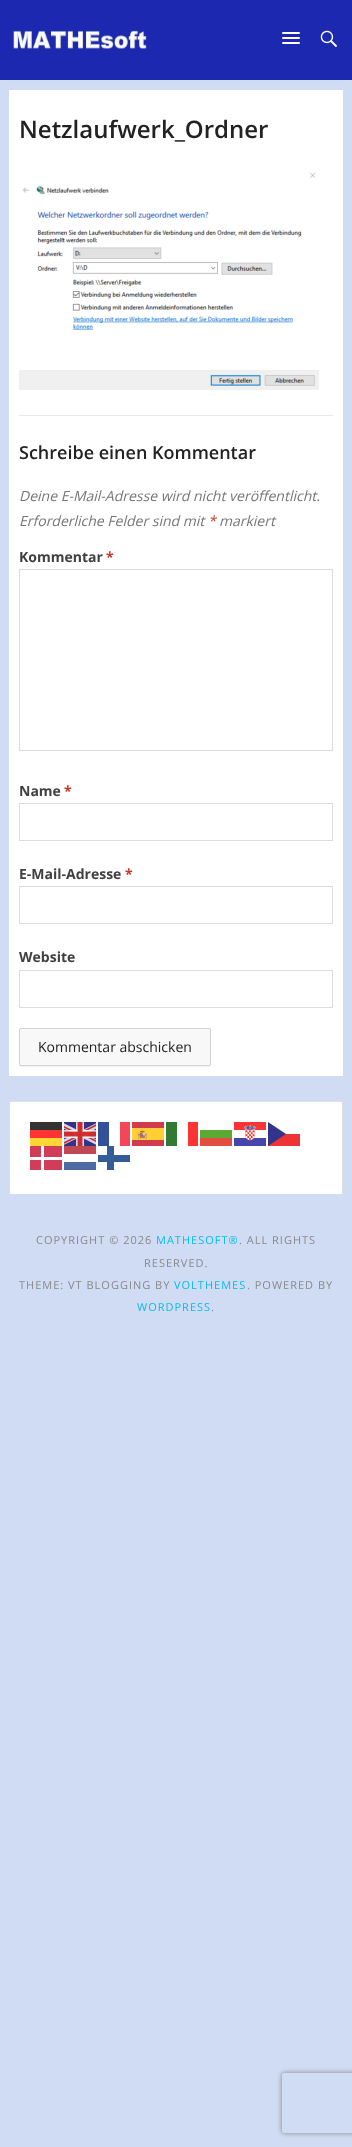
(async () => {
    const canvas = document.querySelector("canvas");
    canvas.width = 352;
    canvas.height = 2147;
    const context = canvas.getContext("2d");
    context.miterLimit = 4;
    context.fontKerning = "normal";
    function write(s, x, y, font, color) {
        context.font = font;
        context.fillStyle = color;
        context.fillText(s, x, y);
    }
    function block(x, y, w, h, color) {
        context.fillStyle = color;
        context.fillRect(x, y, w, h);
    }
    function card(x, y, w, h, r, color) {
        context.fillStyle = color;
        context.beginPath();
        context.roundRect(x, y, w, h, r);
        context.fill();
    }
    async function photo(src, x, y, w, h) {
        const img = new Image();
        img.src = src;
        await img.decode();
        context.drawImage(img, x, y, w, h);
    }

    block(0, 0, 352, 2147, "rgb(208, 220, 244)");
    block(0, 0, 352, 80, "rgb(28, 40, 175)");
    await photo("media/1.png", 13, 30, 134, 19);
    card(282, 32, 18, 2, 1, "rgb(255, 255, 255)");
    card(282, 37, 18, 2, 1, "rgb(255, 255, 255)");
    card(282, 42, 18, 2, 1, "rgb(255, 255, 255)");
    await photo("media/2.png", 320, 30, 18, 18);
    block(9, 90, 334, 986, "rgb(255, 255, 255)");
    write("Netzlaufwerk_Ordner", 19, 138, "600 24px Open Sans", "rgb(34, 34, 34)");
    await photo("media/3.png", 19, 172, 300, 218);
    block(19, 415, 314, 1, "rgb(233, 233, 233)");
    write("Schreibe einen Kommentar", 19, 459, "600 18px Open Sans", "rgb(34, 34, 34)");
    write("Deine E-Mail-Adresse wird nicht veröffentlicht.", 19, 501, "italic 14px Open Sans", "rgb(118, 118, 118)");
    write("Erforderliche Felder sind mit", 19, 526, "italic 14px Open Sans", "rgb(118, 118, 118)");
    write("*", 208, 526, "italic 14px Open Sans", "rgb(192, 57, 43)");
    write("markiert", 219, 526, "italic 14px Open Sans", "rgb(118, 118, 118)");
    write("Kommentar", 19, 562, "bold 14px Open Sans", "rgb(65, 65, 65)");
    write("*", 106, 562, "bold 14px Open Sans", "rgb(192, 57, 43)");
    context.strokeStyle = "rgb(221, 221, 221)";
    context.strokeRect(19.5, 569.5, 313, 181);
    write("Name", 19, 796, "bold 14px Open Sans", "rgb(65, 65, 65)");
    write("*", 64, 796, "bold 14px Open Sans", "rgb(192, 57, 43)");
    context.strokeRect(19.5, 803.5, 313, 37);
    write("E-Mail-Adresse", 19, 879, "bold 14px Open Sans", "rgb(65, 65, 65)");
    write("*", 125, 879, "bold 14px Open Sans", "rgb(192, 57, 43)");
    context.strokeRect(19.5, 886.5, 313, 37);
    write("Website", 19, 962, "bold 14px Open Sans", "rgb(65, 65, 65)");
    context.strokeRect(19.5, 970.5, 313, 37);
    context.fillStyle = "rgb(242, 242, 242)";
    context.beginPath();
    context.moveTo(19, 1064);
    context.lineTo(19, 1065);
    context.bezierCurveTo(19, 1066, 20, 1067, 21, 1067);
    context.lineTo(209, 1067);
    context.bezierCurveTo(210, 1067, 211, 1066, 211, 1065);
    context.lineTo(211, 1064);
    context.bezierCurveTo(211, 1065, 210, 1066, 209, 1066);
    context.lineTo(21, 1066);
    context.bezierCurveTo(20, 1066, 19, 1065, 19, 1064);
    context.closePath();
    context.fill();
    context.fillStyle = "rgb(248, 248, 248)";
    context.beginPath();
    context.roundRect(19.5, 1028.5, 191, 37, 1.5);
    context.fill();
    context.strokeStyle = "rgb(211, 211, 211)";
    context.stroke();
    write("Kommentar abschicken", 38, 1052, "14px Open Sans", "rgb(34, 34, 34)");
    block(10, 1102, 332, 92, "rgb(255, 255, 255)");
    block(9, 1101, 334, 1, "rgb(223, 223, 223)");
    block(342, 1101, 1, 93, "rgb(223, 223, 223)");
    block(9, 1101, 1, 93, "rgb(223, 223, 223)");
    block(30, 1122, 32, 8, "rgb(51, 51, 51)");
    await photo("media/4.png", 64, 1122, 32, 24);
    block(98, 1122, 11, 24, "rgb(51, 81, 153)");
    block(120, 1122, 10, 24, "rgb(245, 70, 89)");
    await photo("media/5.png", 132, 1122, 32, 24);
    block(166, 1122, 11, 24, "rgb(51, 121, 51)");
    block(188, 1122, 10, 24, "rgb(253, 51, 51)");
    await photo("media/6.png", 234, 1122, 32, 24);
    block(268, 1134, 32, 12, "rgb(237, 51, 51)");
    context.fillStyle = "rgb(51, 51, 140)";
    context.beginPath();
    context.moveTo(268, 1122);
    context.lineTo(286, 1134);
    context.lineTo(268, 1146);
    context.closePath();
    context.fill("evenodd");
    block(30, 1130, 32, 8, "rgb(255, 51, 51)");
    block(200, 1130, 32, 8, "rgb(90, 169, 51)");
    block(30, 1138, 32, 8, "rgb(255, 214, 51)");
    block(200, 1138, 32, 8, "rgb(229, 77, 64)");
    block(30, 1146, 32, 24, "rgb(209, 61, 89)");
    block(41, 1146, 3, 24, "rgb(255, 255, 255)");
    block(64, 1146, 32, 8, "rgb(190, 73, 83)");
    block(98, 1155, 32, 7, "rgb(51, 93, 153)");
    block(107, 1146, 7, 24, "rgb(51, 93, 153)");
    block(30, 1157, 32, 3, "rgb(255, 255, 255)");
    block(64, 1162, 32, 8, "rgb(77, 107, 162)");
    context.letterSpacing = "1px";
    write("COPYRIGHT © 2026", 36, 1244, "11px Open Sans", "rgb(136, 136, 136)");
    write("MATHESOFT®", 156, 1244, "11px Open Sans", "rgb(2, 188, 234)");
    write(". ALL RIGHTS", 239, 1244, "11px Open Sans", "rgb(136, 136, 136)");
    write("RESERVED.", 144, 1267, "11px Open Sans", "rgb(136, 136, 136)");
    write("THEME: VT BLOGGING BY", 19, 1289, "11px Open Sans", "rgb(136, 136, 136)");
    write("VOLTHEMES", 174, 1289, "11px Open Sans", "rgb(2, 188, 234)");
    write(". POWERED BY", 247, 1289, "11px Open Sans", "rgb(136, 136, 136)");
    write("WORDPRESS", 137, 1311, "11px Open Sans", "rgb(2, 188, 234)");
    write(".", 211, 1311, "11px Open Sans", "rgb(136, 136, 136)");
    context.save();
    context.beginPath();
    context.moveTo(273, 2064);
    context.lineTo(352, 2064);
    context.lineTo(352, 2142);
    context.lineTo(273, 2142);
    context.closePath();
    context.moveTo(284, 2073);
    context.lineTo(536, 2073);
    context.bezierCurveTo(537, 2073, 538, 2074, 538, 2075);
    context.lineTo(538, 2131);
    context.bezierCurveTo(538, 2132, 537, 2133, 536, 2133);
    context.lineTo(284, 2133);
    context.bezierCurveTo(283, 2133, 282, 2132, 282, 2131);
    context.lineTo(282, 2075);
    context.bezierCurveTo(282, 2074, 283, 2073, 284, 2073);
    context.closePath();
    context.clip("evenodd");
    context.fillStyle = "rgb(128, 128, 128)";
    context.filter = "blur(2.5px)";
    context.beginPath();
    context.roundRect(282, 2073, 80, 60, 2);
    context.fill();
    context.filter = "none";
    context.restore();
})();
